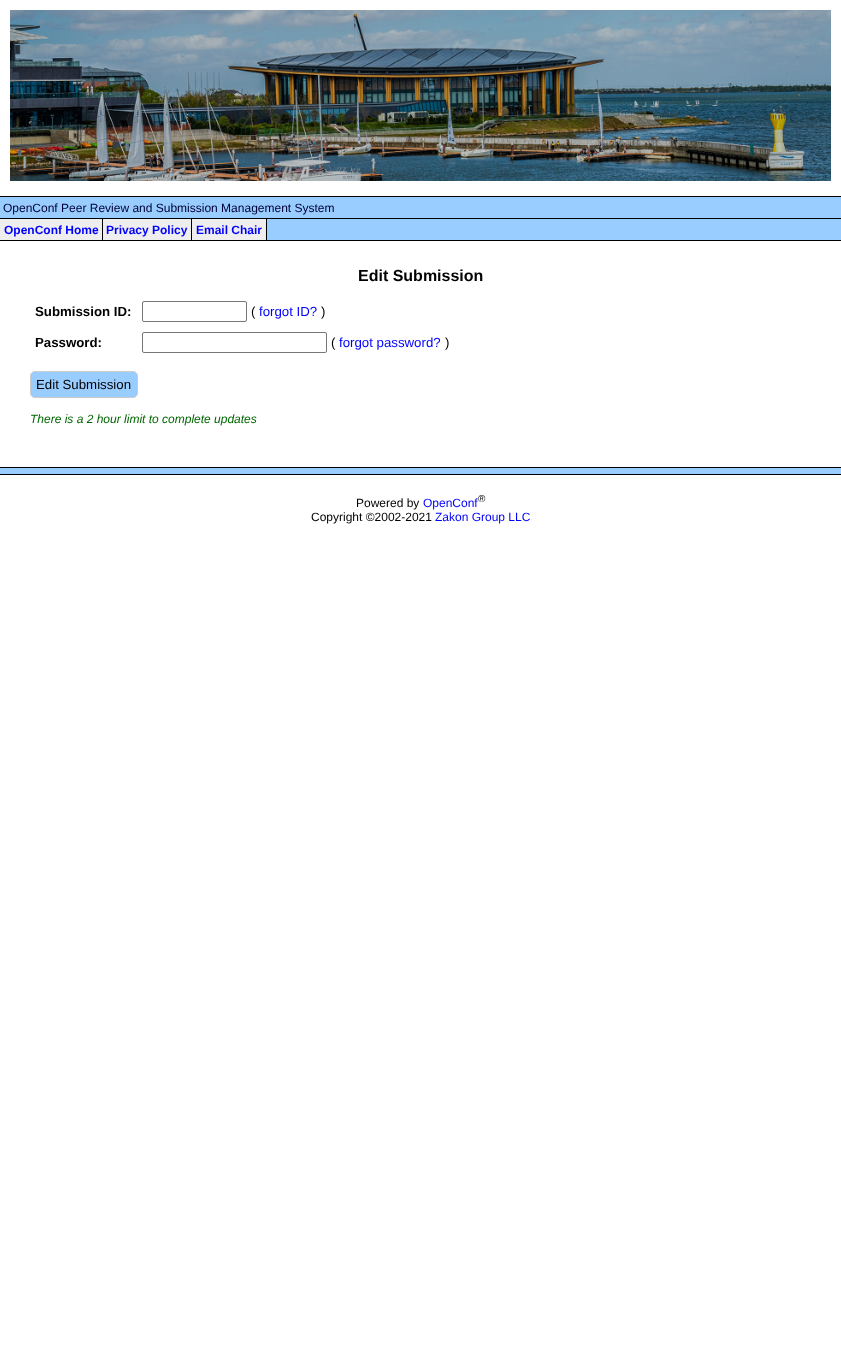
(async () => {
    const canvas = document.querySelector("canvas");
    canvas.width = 841;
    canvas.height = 1360;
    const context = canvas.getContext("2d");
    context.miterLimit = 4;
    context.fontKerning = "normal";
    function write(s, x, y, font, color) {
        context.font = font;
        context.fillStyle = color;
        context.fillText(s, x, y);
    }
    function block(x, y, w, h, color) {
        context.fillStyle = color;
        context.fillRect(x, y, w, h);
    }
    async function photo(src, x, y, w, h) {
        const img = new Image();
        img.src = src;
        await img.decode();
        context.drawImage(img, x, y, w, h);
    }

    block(0, 0, 841, 1360, "rgb(255, 255, 255)");
    await photo("media/1.png", 10, 10, 821, 171);
    block(0, 197, 841, 21, "rgb(153, 204, 255)");
    block(0, 196, 841, 1, "rgb(0, 0, 0)");
    block(0, 218, 841, 1, "rgb(0, 0, 0)");
    write("OpenConf Peer Review and Submission Management System", 3, 212, "12px Liberation Sans", "rgb(0, 0, 51)");
    block(267, 219, 574, 21, "rgb(153, 204, 255)");
    block(0, 240, 841, 1, "rgb(0, 0, 0)");
    block(0, 219, 102, 21, "rgb(238, 238, 238)");
    block(102, 219, 1, 21, "rgb(0, 0, 0)");
    write("OpenConf Home", 4, 234, "bold 12px Liberation Sans", "rgb(0, 0, 255)");
    block(103, 219, 88, 21, "rgb(238, 238, 238)");
    block(191, 219, 1, 21, "rgb(0, 0, 0)");
    write("Privacy Policy", 106, 234, "bold 12px Liberation Sans", "rgb(0, 0, 255)");
    block(192, 219, 74, 21, "rgb(238, 238, 238)");
    block(266, 219, 1, 21, "rgb(0, 0, 0)");
    write("Email Chair", 196, 234, "bold 12px Liberation Sans", "rgb(0, 0, 255)");
    write("Edit Submission", 358, 281, "bold 16px Liberation Sans", "rgb(0, 0, 0)");
    write("Submission ID:", 35, 316, "bold 13.25px Liberation Sans", "rgb(0, 0, 0)");
    context.beginPath();
    context.roundRect(142.5, 301.5, 104, 20, 1.5);
    context.strokeStyle = "rgb(118, 118, 118)";
    context.stroke();
    write("(", 251, 316, "13.25px Liberation Sans", "rgb(0, 0, 0)");
    write("forgot ID?", 259, 316, "13.25px Liberation Sans", "rgb(0, 0, 255)");
    write(")", 321, 316, "13.25px Liberation Sans", "rgb(0, 0, 0)");
    write("Password:", 35, 347, "bold 13.25px Liberation Sans", "rgb(0, 0, 0)");
    context.beginPath();
    context.roundRect(142.5, 332.5, 184, 20, 1.5);
    context.stroke();
    write("(", 331, 347, "13.25px Liberation Sans", "rgb(0, 0, 0)");
    write("forgot password?", 339, 347, "13.25px Liberation Sans", "rgb(0, 0, 255)");
    write(")", 445, 347, "13.25px Liberation Sans", "rgb(0, 0, 0)");
    context.fillStyle = "rgb(153, 204, 255)";
    context.beginPath();
    context.roundRect(30.5, 371.5, 107, 26, 4.5);
    context.fill();
    context.strokeStyle = "rgb(204, 204, 204)";
    context.stroke();
    write("Edit Submission", 36, 389, "13.25px Liberation Sans", "rgb(0, 0, 0)");
    write("There is a 2 hour limit to complete updates", 30, 423, "italic 12px Liberation Sans", "rgb(0, 102, 0)");
    block(0, 468, 841, 6, "rgb(153, 204, 255)");
    block(0, 467, 841, 1, "rgb(0, 0, 0)");
    block(0, 474, 841, 1, "rgb(0, 0, 0)");
    write("Powered by", 356, 507, "12px Liberation Sans", "rgb(0, 0, 0)");
    write("OpenConf", 423, 507, "12px Liberation Sans", "rgb(0, 0, 255)");
    write("®", 478, 502, "10px Liberation Sans", "rgb(0, 0, 0)");
    write("Copyright ©2002-2021", 311, 521, "12px Liberation Sans", "rgb(0, 0, 0)");
    write("Zakon Group LLC", 435, 521, "12px Liberation Sans", "rgb(0, 0, 255)");
})();
